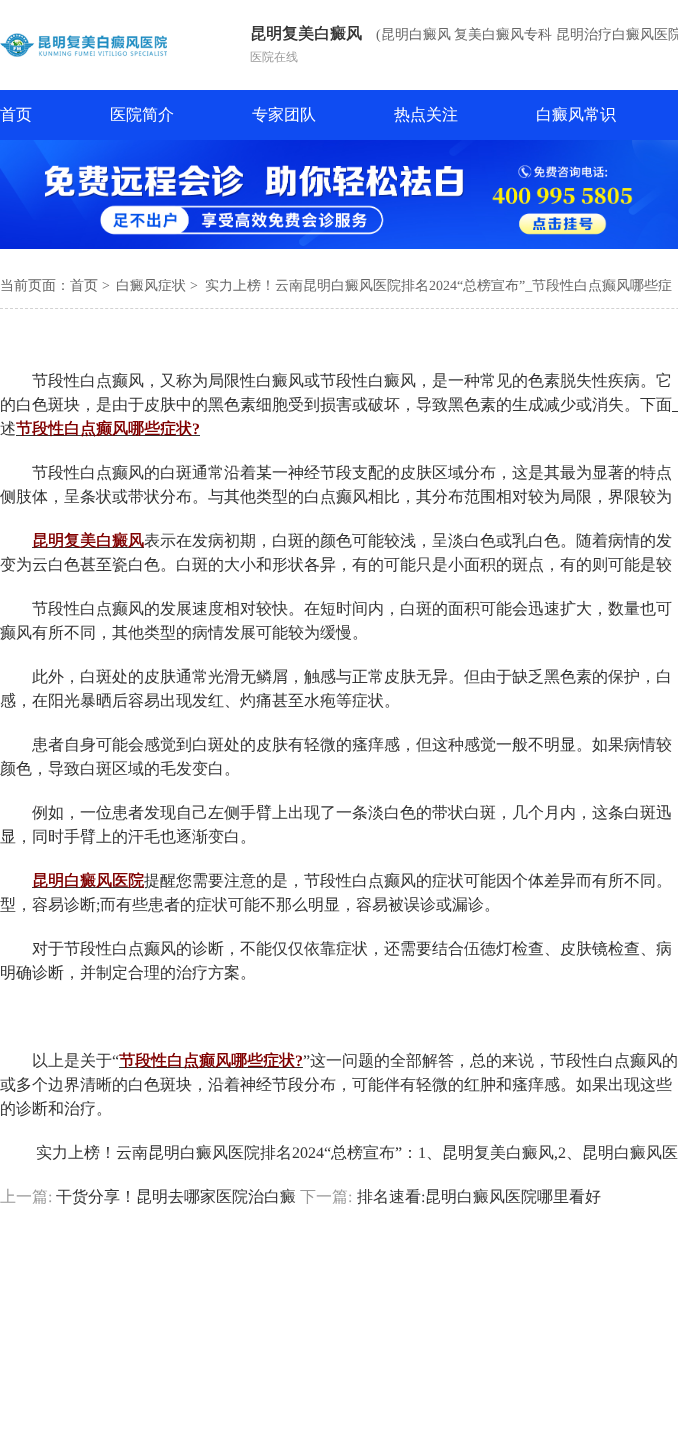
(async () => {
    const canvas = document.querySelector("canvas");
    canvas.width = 678;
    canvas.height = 1446;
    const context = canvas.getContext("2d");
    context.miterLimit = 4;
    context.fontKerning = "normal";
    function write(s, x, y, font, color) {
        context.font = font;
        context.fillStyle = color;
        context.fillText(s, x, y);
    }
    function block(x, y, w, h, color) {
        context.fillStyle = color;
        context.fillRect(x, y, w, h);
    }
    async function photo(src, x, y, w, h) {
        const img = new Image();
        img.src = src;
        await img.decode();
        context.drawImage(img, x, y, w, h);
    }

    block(0, 0, 678, 1446, "rgb(255, 255, 255)");
    await photo("media/1.png", 0, 33, 167, 24);
    write("昆明复美白癜风", 250, 39, "bold 16px WenQuanYi Zen Hei", "rgb(51, 51, 51)");
    write("(", 376, 39, "14px Liberation Serif", "rgb(102, 102, 102)");
    write("昆明白癜风", 381, 39, "500 14px WenQuanYi Zen Hei", "rgb(102, 102, 102)");
    write("复美白癜风专科", 454, 39, "500 14px WenQuanYi Zen Hei", "rgb(102, 102, 102)");
    write("昆明治疗白癜风医院", 556, 39, "500 14px WenQuanYi Zen Hei", "rgb(102, 102, 102)");
    write("医院在线", 250, 61, "500 12px WenQuanYi Zen Hei", "rgb(153, 153, 153)");
    block(0, 90, 678, 50, "rgb(15, 76, 242)");
    write("首页", 0, 120, "500 16px WenQuanYi Zen Hei", "rgb(255, 255, 255)");
    write("医院简介", 110, 120, "500 16px WenQuanYi Zen Hei", "rgb(255, 255, 255)");
    write("专家团队", 252, 120, "500 16px WenQuanYi Zen Hei", "rgb(255, 255, 255)");
    write("热点关注", 394, 120, "500 16px WenQuanYi Zen Hei", "rgb(255, 255, 255)");
    write("白癜风常识", 536, 120, "500 16px WenQuanYi Zen Hei", "rgb(255, 255, 255)");
    await photo("media/2.png", 0, 140, 678, 109);
    context.beginPath();
    context.moveTo(0, 308.5);
    context.lineTo(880, 308.5);
    context.strokeStyle = "rgb(210, 210, 210)";
    context.setLineDash([3, 2.01]);
    context.stroke();
    context.save();
    context.beginPath();
    context.rect(0, 279, 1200, 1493);
    context.clip();
    write("当前页面：", 0, 290, "500 14px WenQuanYi Zen Hei", "rgb(102, 102, 102)");
    context.restore();
    write("首页", 70, 290, "500 14px WenQuanYi Zen Hei", "rgb(102, 102, 102)");
    write(">", 102, 290, "14px Liberation Serif", "rgb(102, 102, 102)");
    context.save();
    context.beginPath();
    context.rect(0, 279, 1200, 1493);
    context.clip();
    write("白癜风症状", 116, 290, "500 14px WenQuanYi Zen Hei", "rgb(102, 102, 102)");
    context.restore();
    write(">", 190, 290, "14px Liberation Serif", "rgb(102, 102, 102)");
    context.save();
    context.beginPath();
    context.rect(0, 279, 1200, 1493);
    context.clip();
    write("实力上榜！云南昆明白癜风医院排名", 205, 290, "500 14px WenQuanYi Zen Hei", "rgb(102, 102, 102)");
    context.restore();
    write("2024“", 429, 290, "14px Liberation Serif", "rgb(102, 102, 102)");
    context.save();
    context.beginPath();
    context.rect(0, 279, 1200, 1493);
    context.clip();
    write("总榜宣布", 463, 290, "500 14px WenQuanYi Zen Hei", "rgb(102, 102, 102)");
    context.restore();
    write("”_", 519, 290, "14px Liberation Serif", "rgb(102, 102, 102)");
    context.save();
    context.beginPath();
    context.rect(0, 279, 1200, 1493);
    context.clip();
    write("节段性白点癫风哪些症", 532, 290, "500 14px WenQuanYi Zen Hei", "rgb(102, 102, 102)");
    context.restore();
    write("节段性白点癫风，又称为局限性白癜风或节段性白癜风，是一种常见的色素脱失性疾病。它", 32, 386, "500 16px WenQuanYi Zen Hei", "rgb(51, 51, 51)");
    write("的白色斑块，是由于皮肤中的黑色素细胞受到损害或破坏，导致黑色素的生成减少或消失。下面", 0, 410, "500 16px WenQuanYi Zen Hei", "rgb(51, 51, 51)");
    block(672, 411, 6, 1, "rgb(51, 51, 51)");
    write("述", 0, 434, "500 16px WenQuanYi Zen Hei", "rgb(51, 51, 51)");
    block(16, 435, 184, 1, "rgb(51, 51, 51)");
    write("节段性白点癫风哪些症状", 16, 434, "bold 16px WenQuanYi Zen Hei", "rgb(128, 0, 0)");
    write("?", 192, 434, "bold 16px Liberation Serif", "rgb(128, 0, 0)");
    write("节段性白点癫风的白斑通常沿着某一神经节段支配的皮肤区域分布，这是其最为显著的特点", 32, 478, "500 16px WenQuanYi Zen Hei", "rgb(51, 51, 51)");
    write("侧肢体，呈条状或带状分布。与其他类型的白点癫风相比，其分布范围相对较为局限，界限较为", 0, 502, "500 16px WenQuanYi Zen Hei", "rgb(51, 51, 51)");
    block(32, 547, 112, 1, "rgb(51, 51, 51)");
    write("昆明复美白癜风", 32, 546, "bold 16px WenQuanYi Zen Hei", "rgb(128, 0, 0)");
    write("表示在发病初期，白斑的颜色可能较浅，呈淡白色或乳白色。随着病情的发", 144, 546, "500 16px WenQuanYi Zen Hei", "rgb(51, 51, 51)");
    write("变为云白色甚至瓷白色。白斑的大小和形状各异，有的可能只是小面积的斑点，有的则可能是较", 0, 570, "500 16px WenQuanYi Zen Hei", "rgb(51, 51, 51)");
    write("节段性白点癫风的发展速度相对较快。在短时间内，白斑的面积可能会迅速扩大，数量也可", 32, 614, "500 16px WenQuanYi Zen Hei", "rgb(51, 51, 51)");
    write("癫风有所不同，其他类型的病情发展可能较为缓慢。", 0, 638, "500 16px WenQuanYi Zen Hei", "rgb(51, 51, 51)");
    write("此外，白斑处的皮肤通常光滑无鳞屑，触感与正常皮肤无异。但由于缺乏黑色素的保护，白", 32, 682, "500 16px WenQuanYi Zen Hei", "rgb(51, 51, 51)");
    write("感，在阳光暴晒后容易出现发红、灼痛甚至水疱等症状。", 0, 706, "500 16px WenQuanYi Zen Hei", "rgb(51, 51, 51)");
    write("患者自身可能会感觉到白斑处的皮肤有轻微的瘙痒感，但这种感觉一般不明显。如果病情较", 32, 750, "500 16px WenQuanYi Zen Hei", "rgb(51, 51, 51)");
    write("颜色，导致白斑区域的毛发变白。", 0, 774, "500 16px WenQuanYi Zen Hei", "rgb(51, 51, 51)");
    write("例如，一位患者发现自己左侧手臂上出现了一条淡白色的带状白斑，几个月内，这条白斑迅", 32, 818, "500 16px WenQuanYi Zen Hei", "rgb(51, 51, 51)");
    write("显，同时手臂上的汗毛也逐渐变白。", 0, 842, "500 16px WenQuanYi Zen Hei", "rgb(51, 51, 51)");
    block(32, 887, 112, 1, "rgb(51, 51, 51)");
    write("昆明白癜风医院", 32, 886, "bold 16px WenQuanYi Zen Hei", "rgb(128, 0, 0)");
    write("提醒您需要注意的是，节段性白点癫风的症状可能因个体差异而有所不同。", 144, 886, "500 16px WenQuanYi Zen Hei", "rgb(51, 51, 51)");
    write("型，容易诊断", 0, 910, "500 16px WenQuanYi Zen Hei", "rgb(51, 51, 51)");
    write(";", 96, 910, "16px Liberation Serif", "rgb(51, 51, 51)");
    write("而有些患者的症状可能不那么明显，容易被误诊或漏诊。", 100, 910, "500 16px WenQuanYi Zen Hei", "rgb(51, 51, 51)");
    write("对于节段性白点癫风的诊断，不能仅仅依靠症状，还需要结合伍德灯检查、皮肤镜检查、病", 32, 954, "500 16px WenQuanYi Zen Hei", "rgb(51, 51, 51)");
    write("明确诊断，并制定合理的治疗方案。", 0, 978, "500 16px WenQuanYi Zen Hei", "rgb(51, 51, 51)");
    write("以上是关于", 32, 1066, "500 16px WenQuanYi Zen Hei", "rgb(51, 51, 51)");
    write("“", 112, 1066, "16px Liberation Serif", "rgb(51, 51, 51)");
    block(119, 1067, 184, 1, "rgb(51, 51, 51)");
    write("节段性白点癫风哪些症状", 119, 1066, "bold 16px WenQuanYi Zen Hei", "rgb(128, 0, 0)");
    write("?", 295, 1066, "bold 16px Liberation Serif", "rgb(128, 0, 0)");
    write("”", 303, 1066, "16px Liberation Serif", "rgb(51, 51, 51)");
    write("这一问题的全部解答，总的来说，节段性白点癫风的", 310, 1066, "500 16px WenQuanYi Zen Hei", "rgb(51, 51, 51)");
    write("或多个边界清晰的白色斑块，沿着神经节段分布，可能伴有轻微的红肿和瘙痒感。如果出现这些", 0, 1090, "500 16px WenQuanYi Zen Hei", "rgb(51, 51, 51)");
    write("的诊断和治疗。", 0, 1114, "500 16px WenQuanYi Zen Hei", "rgb(51, 51, 51)");
    write("实力上榜！云南昆明白癜风医院排名", 36, 1158, "500 16px WenQuanYi Zen Hei", "rgb(51, 51, 51)");
    write("2024“", 292, 1158, "16px Liberation Serif", "rgb(51, 51, 51)");
    write("总榜宣布", 331, 1158, "500 16px WenQuanYi Zen Hei", "rgb(51, 51, 51)");
    write("”", 395, 1158, "16px Liberation Serif", "rgb(51, 51, 51)");
    write("：", 402, 1158, "500 16px WenQuanYi Zen Hei", "rgb(51, 51, 51)");
    write("1", 418, 1158, "16px Liberation Serif", "rgb(51, 51, 51)");
    write("、昆明复美白癜风", 426, 1158, "500 16px WenQuanYi Zen Hei", "rgb(51, 51, 51)");
    write(",2", 554, 1158, "16px Liberation Serif", "rgb(51, 51, 51)");
    write("、昆明白癜风医", 566, 1158, "500 16px WenQuanYi Zen Hei", "rgb(51, 51, 51)");
    write("上一篇", 0, 1202, "500 16px WenQuanYi Zen Hei", "rgb(153, 153, 153)");
    write(":", 48, 1202, "16px Liberation Serif", "rgb(153, 153, 153)");
    write("干货分享！昆明去哪家医院治白癜", 56, 1202, "500 16px WenQuanYi Zen Hei", "rgb(51, 51, 51)");
    write("下一篇", 300, 1202, "500 16px WenQuanYi Zen Hei", "rgb(153, 153, 153)");
    write(":", 348, 1202, "16px Liberation Serif", "rgb(153, 153, 153)");
    write("排名速看", 357, 1202, "500 16px WenQuanYi Zen Hei", "rgb(51, 51, 51)");
    write(":", 421, 1202, "16px Liberation Serif", "rgb(51, 51, 51)");
    write("昆明白癜风医院哪里看好", 425, 1202, "500 16px WenQuanYi Zen Hei", "rgb(51, 51, 51)");
})();
